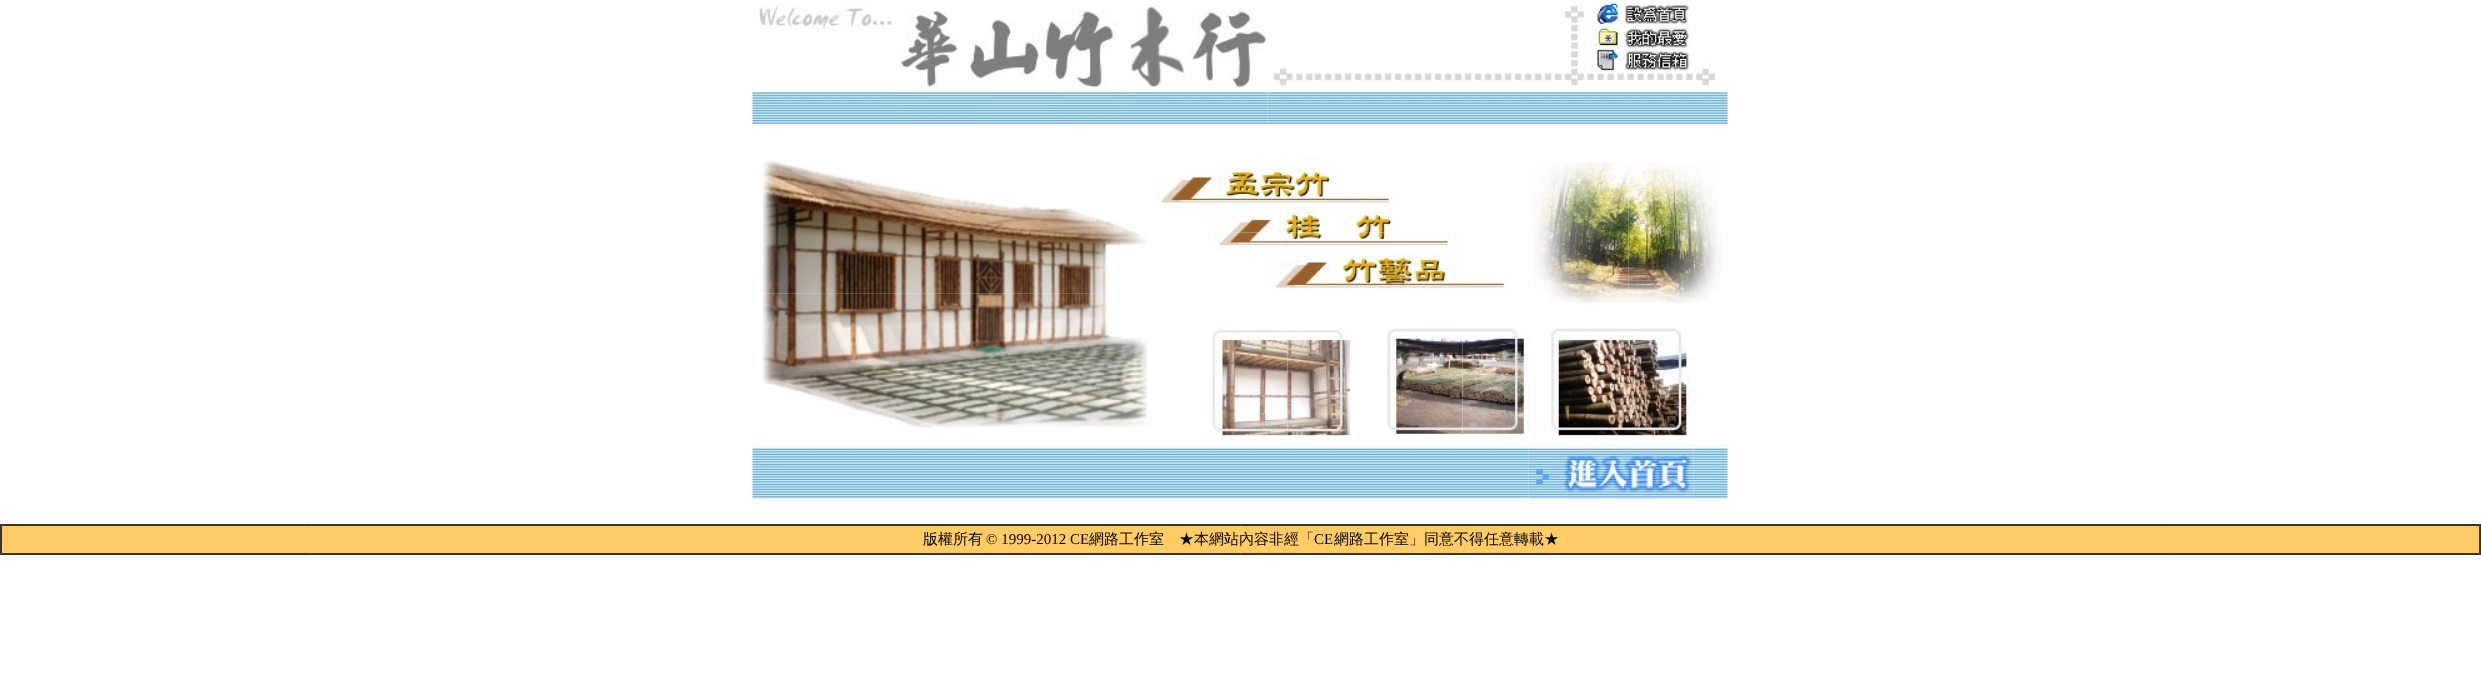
(async () => {
    const canvas = document.querySelector("canvas");
    canvas.width = 2481;
    canvas.height = 689;
    const context = canvas.getContext("2d");
    context.miterLimit = 4;
    context.fontKerning = "normal";
    function write(s, x, y, font, color) {
        context.font = font;
        context.fillStyle = color;
        context.fillText(s, x, y);
    }
    function block(x, y, w, h, color) {
        context.fillStyle = color;
        context.fillRect(x, y, w, h);
    }
    async function photo(src, x, y, w, h) {
        const img = new Image();
        img.src = src;
        await img.decode();
        context.drawImage(img, x, y, w, h);
    }

    block(0, 0, 2481, 689, "rgb(255, 255, 255)");
    await photo("media/1.png", 759, 2, 133, 27);
    await photo("media/2.png", 898, 4, 369, 85);
    await photo("media/3.png", 1560, 0, 156, 86);
    await photo("media/4.png", 1273, 68, 287, 18);
    await photo("media/5.png", 752, 90, 516, 35);
    await photo("media/6.png", 1267, 90, 461, 35);
    await photo("media/7.png", 762, 161, 133, 133);
    await photo("media/8.png", 895, 187, 135, 107);
    await photo("media/9.png", 1030, 206, 117, 88);
    await photo("media/10.png", 1155, 157, 165, 76);
    await photo("media/11.png", 1320, 160, 80, 73);
    await photo("media/12.png", 1529, 161, 100, 69);
    await photo("media/13.png", 1628, 162, 91, 68);
    await photo("media/14.png", 1214, 232, 106, 61);
    await photo("media/15.png", 1320, 232, 189, 61);
    await photo("media/16.png", 1533, 230, 96, 64);
    await photo("media/17.png", 1628, 230, 93, 64);
    await photo("media/18.png", 762, 293, 133, 32);
    await photo("media/19.png", 895, 293, 135, 32);
    await photo("media/20.png", 1030, 293, 77, 32);
    await photo("media/21.png", 1550, 293, 159, 10);
    await photo("media/22.png", 762, 325, 133, 50);
    await photo("media/23.png", 895, 325, 135, 50);
    await photo("media/24.png", 1030, 325, 118, 50);
    await photo("media/25.png", 1212, 325, 76, 50);
    await photo("media/26.png", 1287, 330, 65, 45);
    await photo("media/27.png", 1387, 325, 76, 50);
    await photo("media/28.png", 1462, 325, 69, 50);
    await photo("media/29.png", 1550, 328, 80, 47);
    await photo("media/30.png", 1630, 328, 60, 47);
    await photo("media/31.png", 762, 375, 133, 45);
    await photo("media/32.png", 895, 375, 135, 53);
    await photo("media/33.png", 1030, 375, 119, 53);
    await photo("media/34.png", 1208, 375, 80, 61);
    await photo("media/35.png", 1287, 375, 64, 61);
    await photo("media/36.png", 1387, 375, 76, 60);
    await photo("media/37.png", 1462, 375, 69, 61);
    await photo("media/38.png", 1551, 375, 79, 61);
    await photo("media/39.png", 1630, 375, 60, 61);
    await photo("media/40.png", 752, 446, 353, 54);
    await photo("media/41.png", 1105, 446, 424, 54);
    await photo("media/42.png", 1528, 445, 166, 7);
    await photo("media/43.png", 1693, 446, 35, 54);
    await photo("media/44.png", 1528, 451, 166, 49);
    context.strokeStyle = "rgb(51, 51, 51)";
    context.strokeRect(0.5, 524.5, 2480, 30);
    context.fillStyle = "rgb(255, 204, 102)";
    context.beginPath();
    context.rect(1.5, 525.5, 2478, 28);
    context.fill();
    context.stroke();
    write("版權所有", 923, 544, "500 15px WenQuanYi Zen Hei", "rgb(0, 0, 0)");
    write("© 1999-2012 CE", 986, 544, "15px Liberation Serif", "rgb(0, 0, 0)");
    write("網路工作室　★本網站內容非經「", 1089, 544, "500 15px WenQuanYi Zen Hei", "rgb(0, 0, 0)");
    write("CE", 1314, 544, "15px Liberation Serif", "rgb(0, 0, 0)");
    write("網路工作室」同意不得任意轉載★", 1334, 544, "500 15px WenQuanYi Zen Hei", "rgb(0, 0, 0)");
})();
